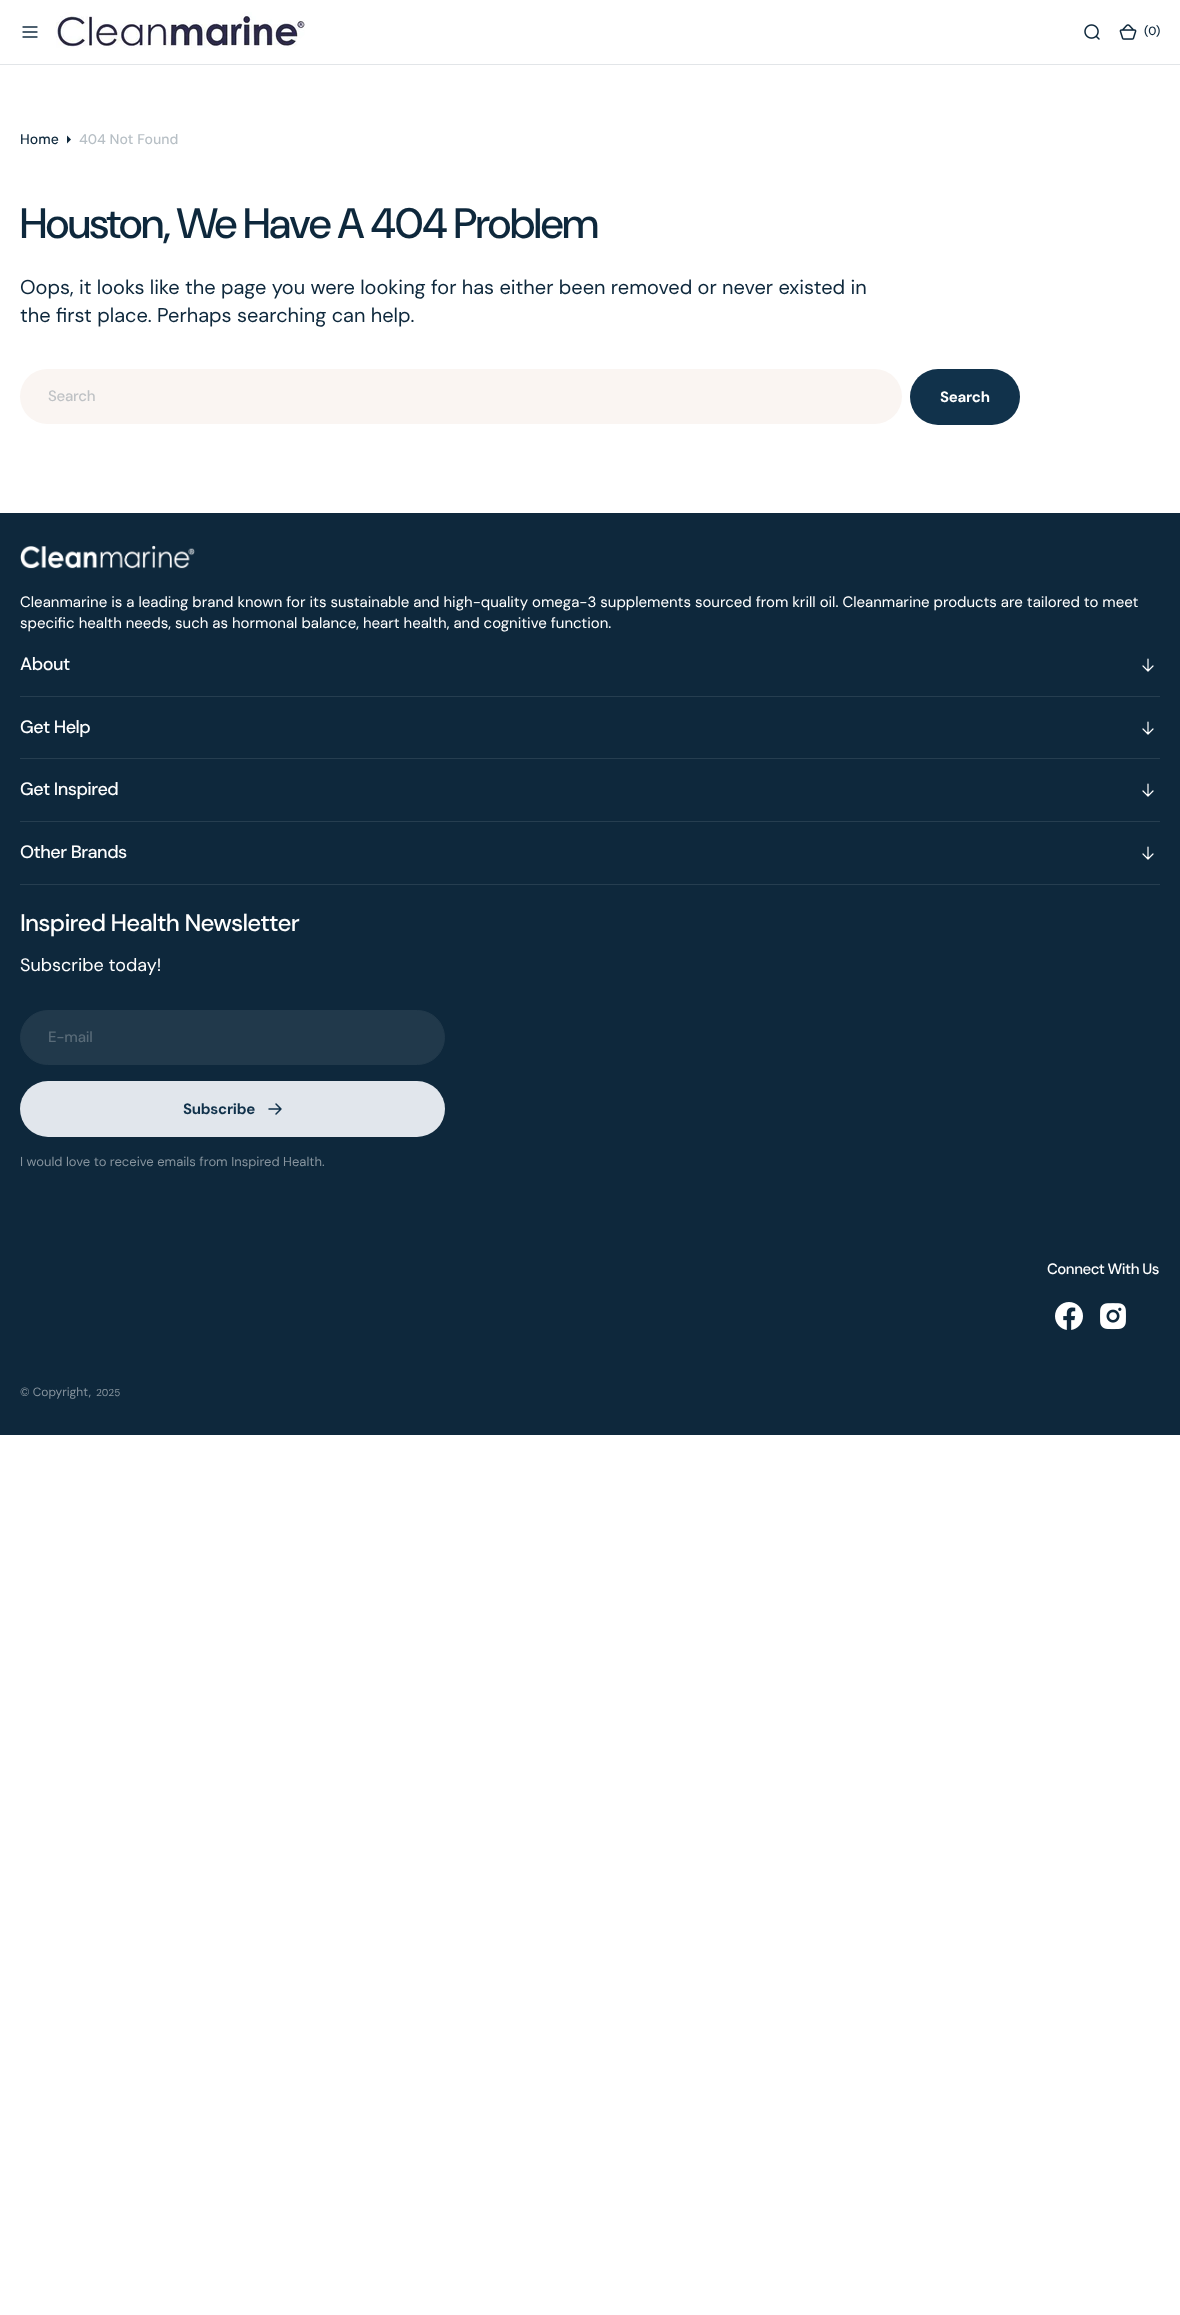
(async () => {
    const canvas = document.querySelector("canvas");
    canvas.width = 1180;
    canvas.height = 2315;
    const context = canvas.getContext("2d");
    context.miterLimit = 4;
    context.fontKerning = "normal";
    function write(s, x, y, font, color) {
        context.font = font;
        context.fillStyle = color;
        context.fillText(s, x, y);
    }
    function block(x, y, w, h, color) {
        context.fillStyle = color;
        context.fillRect(x, y, w, h);
    }
    function card(x, y, w, h, r, color) {
        context.fillStyle = color;
        context.beginPath();
        context.roundRect(x, y, w, h, r);
        context.fill();
    }
    async function photo(src, x, y, w, h) {
        const img = new Image();
        img.src = src;
        await img.decode();
        context.drawImage(img, x, y, w, h);
    }

    block(0, 0, 1180, 2315, "rgb(255, 255, 255)");
    block(0, 64, 1180, 1, "rgb(226, 229, 232)");
    await photo("media/1.png", 22, 26, 16, 12);
    await photo("media/2.png", 56, 12, 249, 36);
    await photo("media/3.png", 1084, 24, 16, 16);
    await photo("media/4.png", 1119, 24, 18, 16);
    write("(0)", 1144, 35, "500 12px 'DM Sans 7'", "rgb(14, 40, 60)");
    write("Home", 20, 144, "500 14px 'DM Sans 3'", "rgb(14, 40, 60)");
    context.beginPath();
    context.moveTo(71, 139.5);
    context.lineTo(67, 143.5);
    context.lineTo(67, 135.5);
    context.closePath();
    context.fill();
    write("404 Not Found", 79, 144, "500 14px 'DM Sans 3'", "rgb(183, 191, 197)");
    context.letterSpacing = "-1.25px";
    write("Houston, We Have A 404 Problem", 20, 238, "500 42.5px DM Sans", "rgb(14, 40, 60)");
    context.letterSpacing = "0px";
    write("Oops, it looks like the page you were looking for has either been removed or never existed in", 20, 294, "20px DM Sans", "rgb(14, 40, 60)");
    write("the first place. Perhaps searching can help.", 20, 322, "20px DM Sans", "rgb(14, 40, 60)");
    card(20, 369, 882, 55, 27.5, "rgb(250, 245, 242)");
    context.letterSpacing = "-0.25px";
    write("Search", 48, 401, "500 15px 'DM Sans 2'", "rgb(191, 194, 197)");
    card(910, 369, 110, 56, 28, "rgb(17, 50, 75)");
    write("Search", 940, 402, "bold 15px DM Sans", "rgb(255, 255, 255)");
    block(0, 513, 1180, 922, "rgb(14, 40, 60)");
    await photo("media/5.png", 20, 545, 175, 24);
    context.letterSpacing = "0px";
    write("Cleanmarine is a leading brand known for its sustainable and high-quality omega-3 supplements sourced from krill oil. Cleanmarine products are tailored to meet", 20, 607, "15px 'DM Sans 2'", "rgb(255, 255, 255)");
    write("specific health needs, such as hormonal balance, heart health, and cognitive function.", 20, 628, "15px 'DM Sans 2'", "rgb(255, 255, 255)");
    block(20, 696, 1140, 1, "rgb(38, 62, 80)");
    context.letterSpacing = "-0.5px";
    write("About", 20, 670, "500 18px 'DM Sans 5'", "rgb(255, 255, 255)");
    context.beginPath();
    context.moveTo(1153, 666);
    context.lineTo(1148, 671);
    context.moveTo(1148, 671);
    context.lineTo(1143, 666);
    context.moveTo(1148, 671);
    context.lineTo(1148, 659);
    context.strokeStyle = "rgb(255, 255, 255)";
    context.lineWidth = 1.2;
    context.lineCap = "round";
    context.lineJoin = "round";
    context.stroke();
    block(20, 758, 1140, 1, "rgb(38, 62, 80)");
    write("Get Help", 20, 733, "500 18px 'DM Sans 5'", "rgb(255, 255, 255)");
    context.beginPath();
    context.moveTo(1153, 729);
    context.lineTo(1148, 734);
    context.moveTo(1148, 734);
    context.lineTo(1143, 729);
    context.moveTo(1148, 734);
    context.lineTo(1148, 722);
    context.stroke();
    block(20, 821, 1140, 1, "rgb(38, 62, 80)");
    write("Get Inspired", 20, 795, "500 18px 'DM Sans 5'", "rgb(255, 255, 255)");
    context.beginPath();
    context.moveTo(1153, 791);
    context.lineTo(1148, 796);
    context.moveTo(1148, 796);
    context.lineTo(1143, 791);
    context.moveTo(1148, 796);
    context.lineTo(1148, 784);
    context.stroke();
    block(20, 884, 1140, 1, "rgb(38, 62, 80)");
    write("Other Brands", 20, 858, "500 18px 'DM Sans 5'", "rgb(255, 255, 255)");
    context.beginPath();
    context.moveTo(1153, 854);
    context.lineTo(1148, 859);
    context.moveTo(1148, 859);
    context.lineTo(1143, 854);
    context.moveTo(1148, 859);
    context.lineTo(1148, 847);
    context.stroke();
    context.letterSpacing = "-0.75px";
    write("Inspired Health Newsletter", 20, 931, "500 24px 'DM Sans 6'", "rgb(255, 255, 255)");
    context.letterSpacing = "0px";
    write("Subscribe today!", 20, 971, "18px 'DM Sans 3'", "rgb(255, 255, 255)");
    context.fillStyle = "rgb(33, 57, 75)";
    context.beginPath();
    context.roundRect(20.5, 1010.5, 424, 54, 27);
    context.fill();
    context.strokeStyle = "rgb(33, 57, 75)";
    context.lineWidth = 1;
    context.lineJoin = "miter";
    context.stroke();
    context.letterSpacing = "-0.25px";
    write("E-mail", 48, 1042, "500 15px 'DM Sans 2'", "rgb(89, 107, 120)");
    card(20, 1081, 425, 56, 28, "rgb(225, 230, 236)");
    write("Subscribe", 183, 1114, "bold 15px DM Sans", "rgb(17, 50, 75)");
    context.beginPath();
    context.moveTo(276, 1104);
    context.lineTo(281, 1109);
    context.moveTo(281, 1109);
    context.lineTo(276, 1114);
    context.moveTo(281, 1109);
    context.lineTo(269, 1109);
    context.strokeStyle = "rgb(17, 50, 75)";
    context.lineWidth = 1.5;
    context.lineJoin = "round";
    context.stroke();
    context.letterSpacing = "0px";
    write("I would love to receive emails from Inspired Health.", 20, 1166, "13px 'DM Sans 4'", "rgb(135, 148, 158)");
    context.letterSpacing = "-0.5px";
    write("Connect With Us", 1047, 1274, "500 15px 'DM Sans 4'", "rgb(255, 255, 255)");
    await photo("media/6.png", 1055, 1302, 28, 28);
    await photo("media/7.png", 1100, 1303, 26, 27);
    context.letterSpacing = "0px";
    write("© Copyright,", 20, 1396, "12px 'DM Sans 5'", "rgb(135, 148, 158)");
    write("2025", 96, 1396, "10px 'DM Sans 6'", "rgb(135, 148, 158)");
})();
